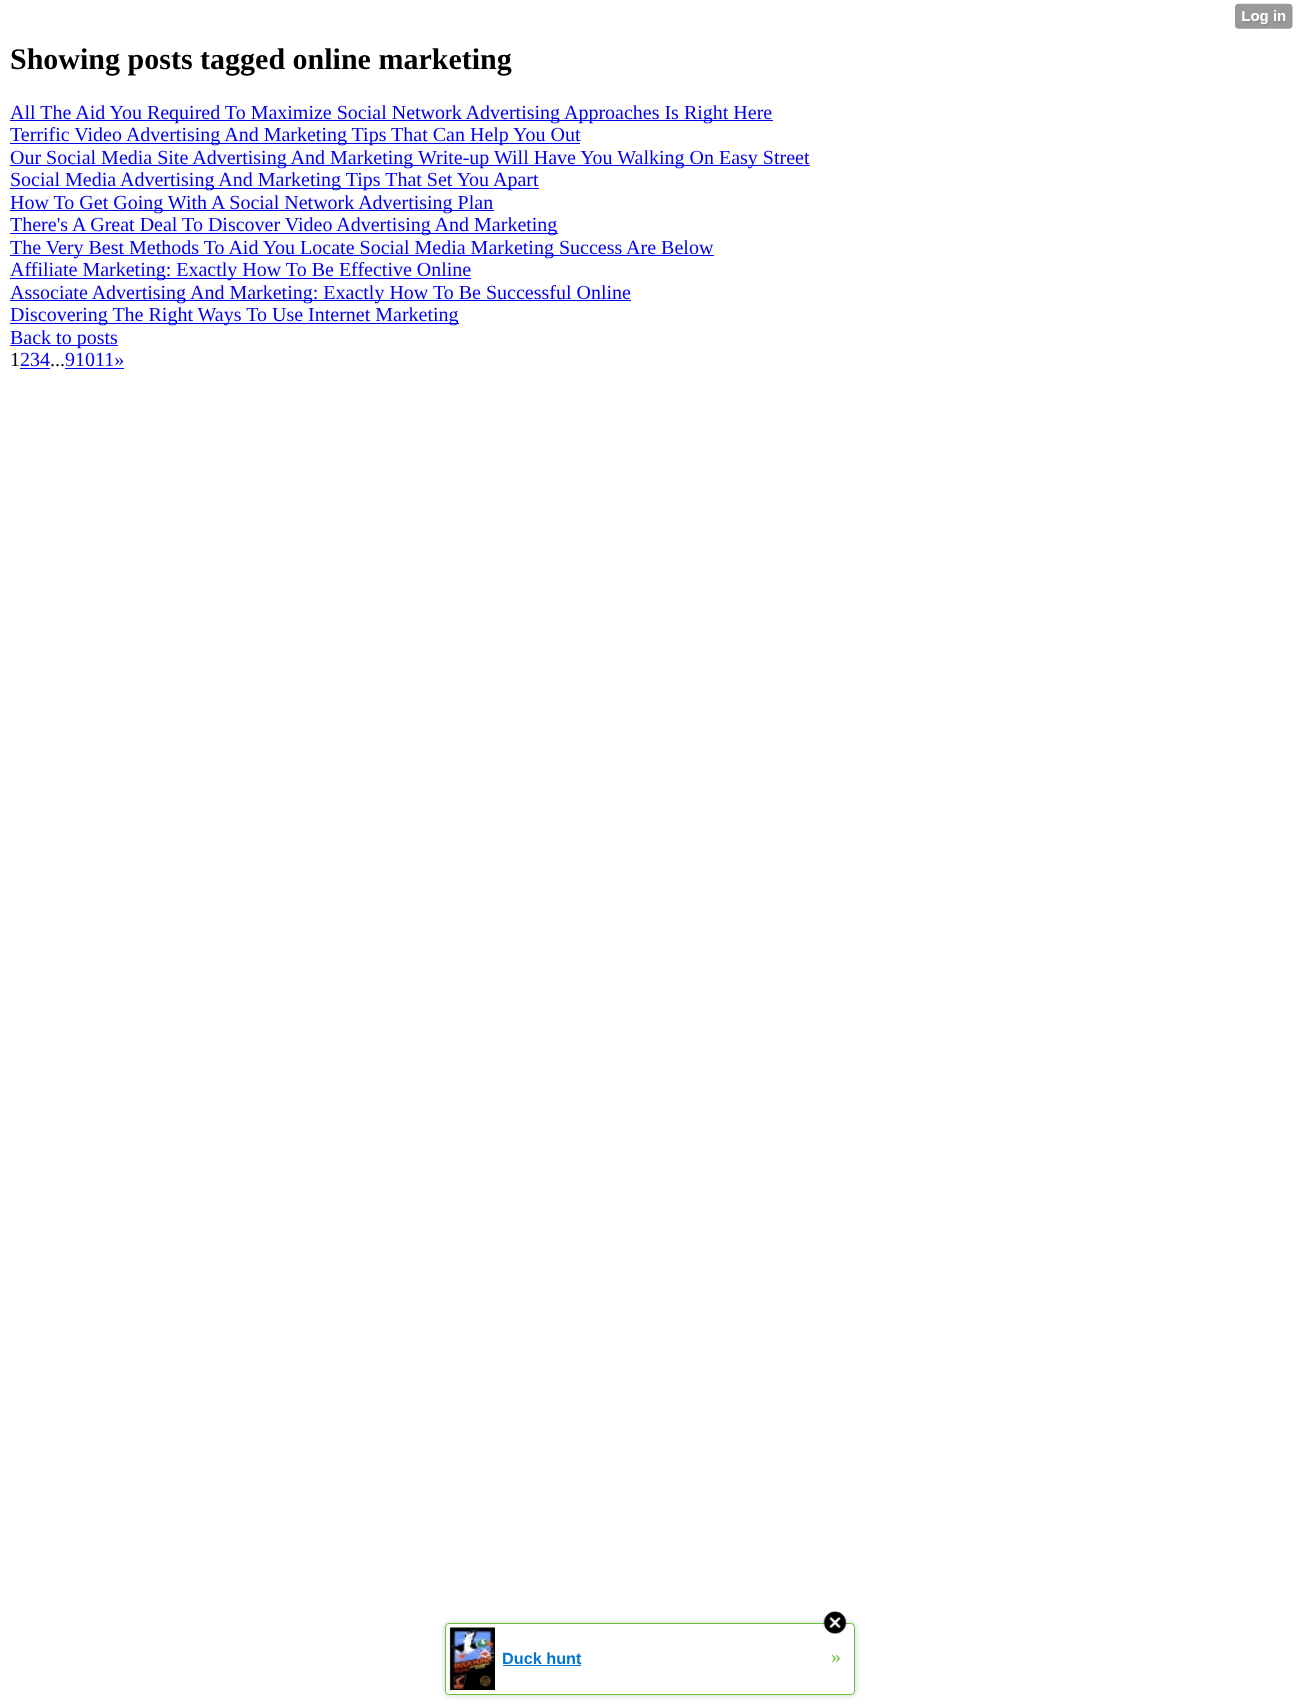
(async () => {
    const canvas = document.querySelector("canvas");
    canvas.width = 1298;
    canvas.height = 1708;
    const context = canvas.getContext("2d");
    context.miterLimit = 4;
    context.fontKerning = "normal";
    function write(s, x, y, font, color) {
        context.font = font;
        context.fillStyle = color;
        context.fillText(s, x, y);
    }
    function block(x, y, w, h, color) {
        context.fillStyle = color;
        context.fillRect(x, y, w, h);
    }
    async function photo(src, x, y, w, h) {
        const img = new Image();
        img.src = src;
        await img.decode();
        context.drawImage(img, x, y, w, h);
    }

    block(0, 0, 1298, 1708, "rgb(255, 255, 255)");
    await photo("media/1.png", 1235, 3, 58, 26);
    write("Showing posts tagged online marketing", 10, 69, "bold 30px Liberation Serif", "rgb(0, 0, 0)");
    block(10, 120, 763, 1, "rgb(0, 0, 238)");
    write("All The Aid You Required To Maximize Social Network Advertising Approaches Is Right Here", 10, 119, "20px Liberation Serif", "rgb(0, 0, 238)");
    block(10, 143, 570, 1, "rgb(0, 0, 238)");
    write("Terrific Video Advertising And Marketing Tips That Can Help You Out", 10, 141, "20px Liberation Serif", "rgb(0, 0, 238)");
    block(10, 165, 800, 1, "rgb(0, 0, 238)");
    write("Our Social Media Site Advertising And Marketing Write-up Will Have You Walking On Easy Street", 10, 164, "20px Liberation Serif", "rgb(0, 0, 238)");
    block(10, 188, 529, 1, "rgb(0, 0, 238)");
    write("Social Media Advertising And Marketing Tips That Set You Apart", 10, 186, "20px Liberation Serif", "rgb(0, 0, 238)");
    block(10, 210, 484, 1, "rgb(0, 0, 238)");
    write("How To Get Going With A Social Network Advertising Plan", 10, 209, "20px Liberation Serif", "rgb(0, 0, 238)");
    block(10, 233, 548, 1, "rgb(0, 0, 238)");
    write("There's A Great Deal To Discover Video Advertising And Marketing", 10, 231, "20px Liberation Serif", "rgb(0, 0, 238)");
    block(10, 255, 704, 1, "rgb(0, 0, 238)");
    write("The Very Best Methods To Aid You Locate Social Media Marketing Success Are Below", 10, 254, "20px Liberation Serif", "rgb(0, 0, 238)");
    block(10, 278, 461, 1, "rgb(0, 0, 238)");
    write("Affiliate Marketing: Exactly How To Be Effective Online", 10, 276, "20px Liberation Serif", "rgb(0, 0, 238)");
    block(10, 300, 621, 1, "rgb(0, 0, 238)");
    write("Associate Advertising And Marketing: Exactly How To Be Successful Online", 10, 299, "20px Liberation Serif", "rgb(0, 0, 238)");
    block(10, 323, 449, 1, "rgb(0, 0, 238)");
    write("Discovering The Right Ways To Use Internet Marketing", 10, 321, "20px Liberation Serif", "rgb(0, 0, 238)");
    block(10, 345, 108, 1, "rgb(0, 0, 238)");
    write("Back to posts", 10, 344, "20px Liberation Serif", "rgb(0, 0, 238)");
    write("1", 10, 366, "20px Liberation Serif", "rgb(0, 0, 0)");
    write("234", 20, 366, "20px Liberation Serif", "rgb(0, 0, 238)");
    block(20, 368, 30, 1, "rgb(0, 0, 238)");
    write("...", 50, 366, "20px Liberation Serif", "rgb(0, 0, 0)");
    write("91011»", 65, 366, "20px Liberation Serif", "rgb(0, 0, 238)");
    block(65, 368, 59, 1, "rgb(0, 0, 238)");
    context.fillStyle = "rgba(0, 0, 0, 0.2)";
    context.filter = "blur(3px)";
    context.beginPath();
    context.roundRect(445, 1623, 410, 72, 4);
    context.fill();
    context.filter = "none";
    context.fillStyle = "rgb(255, 255, 255)";
    context.beginPath();
    context.roundRect(445.5, 1623.5, 409, 71, 3.5);
    context.fill();
    context.strokeStyle = "rgb(107, 193, 53)";
    context.stroke();
    await photo("media/2.png", 823, 1611, 24, 23);
    await photo("media/3.png", 449, 1627, 46, 63);
    write("Duck hunt", 502, 1664, "bold 16.25px Liberation Sans", "rgb(2, 116, 212)");
    block(503, 1665, 78, 1, "rgb(2, 116, 212)");
    write("»", 831, 1663, "20px Liberation Serif", "rgb(107, 193, 53)");
})();
